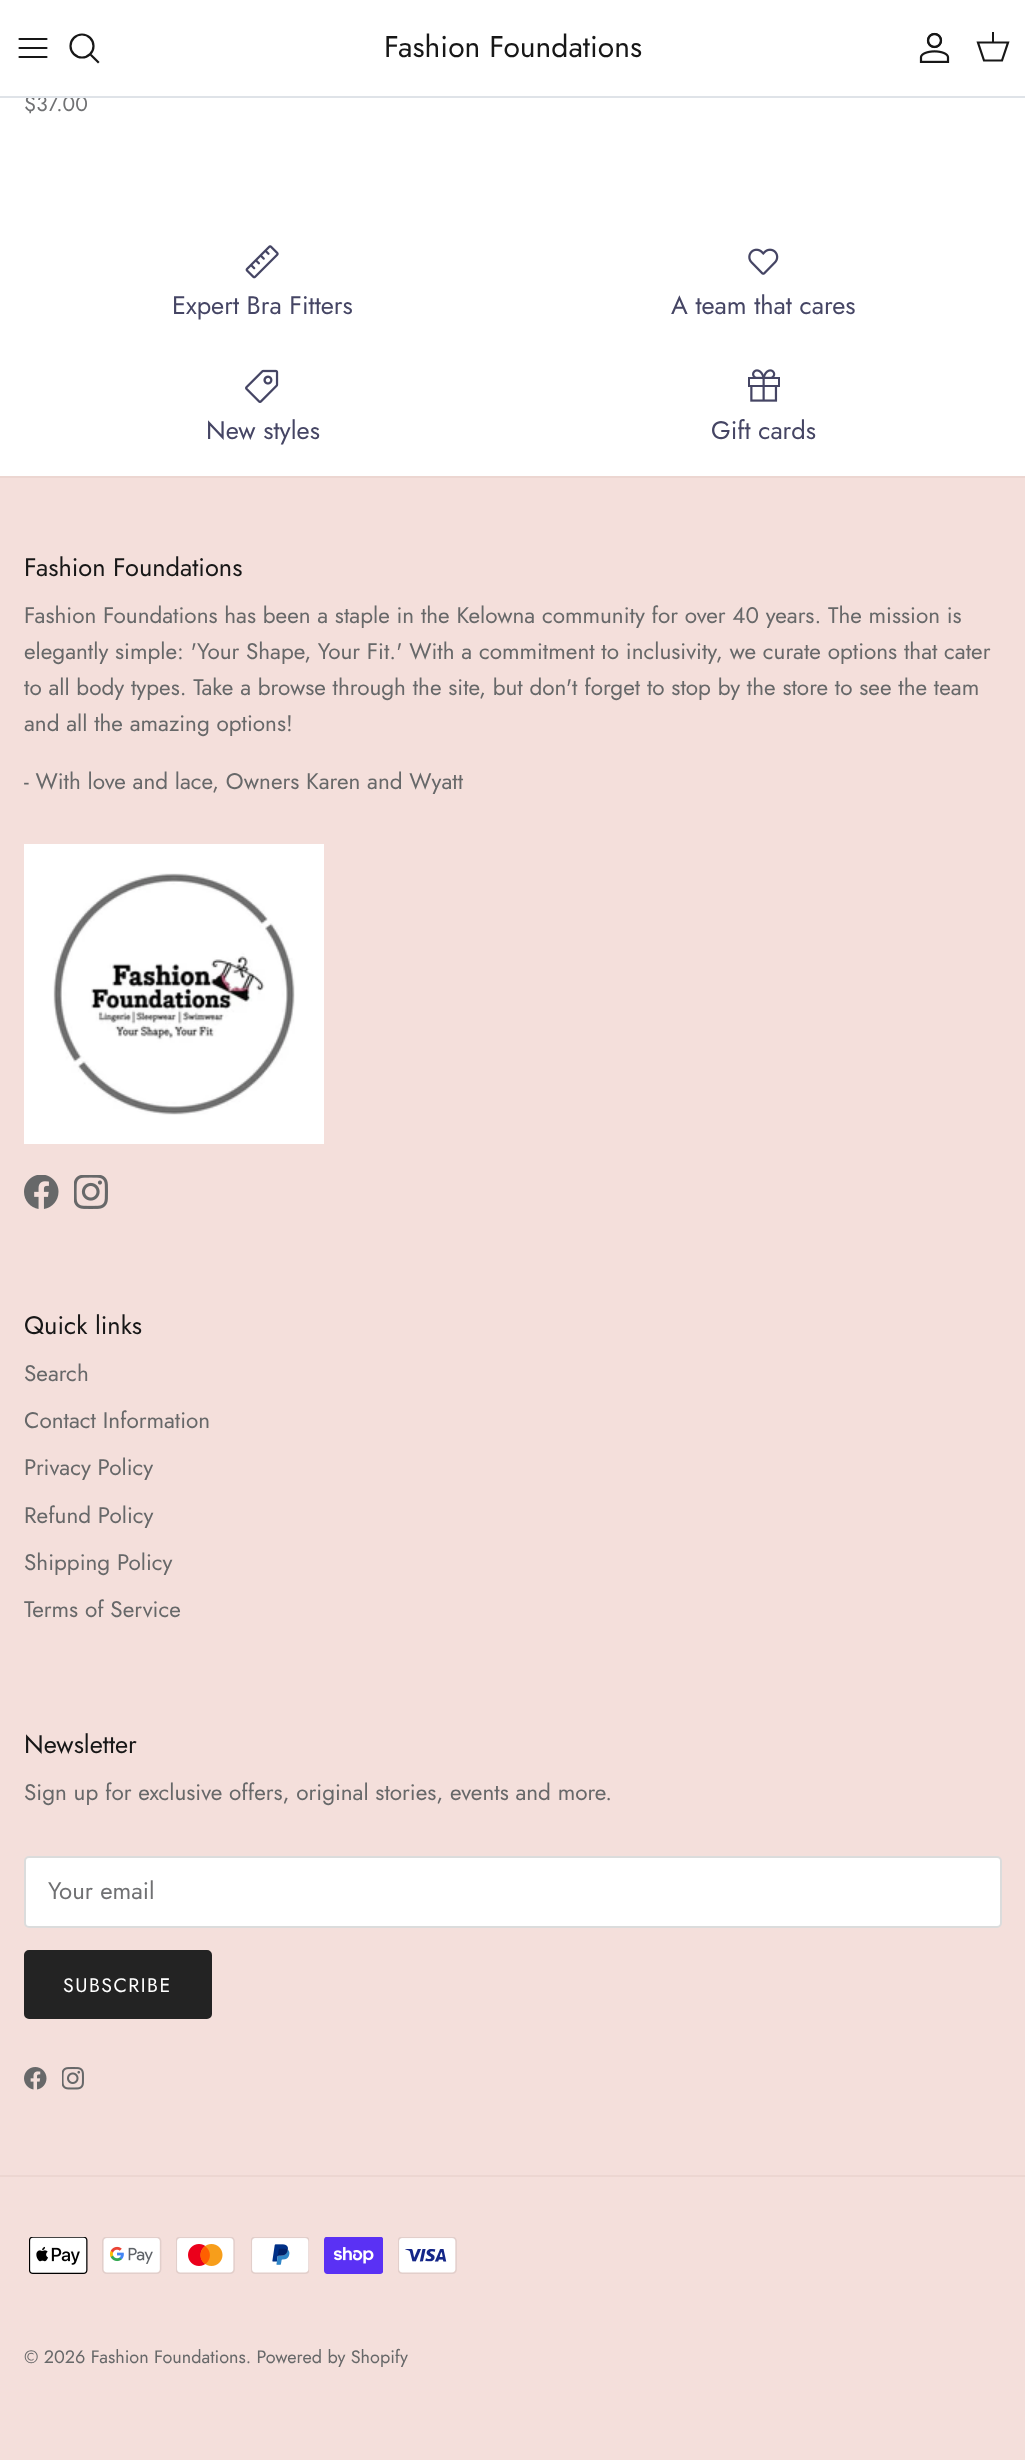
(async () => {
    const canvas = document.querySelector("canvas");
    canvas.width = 1025;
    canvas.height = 2460;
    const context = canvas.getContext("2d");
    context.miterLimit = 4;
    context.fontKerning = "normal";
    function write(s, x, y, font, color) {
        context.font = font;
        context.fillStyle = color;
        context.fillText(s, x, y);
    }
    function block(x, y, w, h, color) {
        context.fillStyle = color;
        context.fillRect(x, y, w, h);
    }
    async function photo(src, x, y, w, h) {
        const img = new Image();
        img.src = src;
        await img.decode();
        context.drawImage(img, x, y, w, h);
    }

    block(0, 0, 1025, 2460, "rgb(255, 255, 255)");
    write("$37.00", 24, 111, "21px Jost", "rgb(112, 113, 115)");
    block(29, 93, 2, 3, "rgb(255, 255, 255)");
    block(0, 96, 1025, 2, "rgb(223, 227, 232)");
    context.beginPath();
    context.moveTo(19.5, 48);
    context.lineTo(46.5, 48);
    context.moveTo(19.5, 39);
    context.lineTo(46.5, 39);
    context.moveTo(19.5, 57);
    context.lineTo(46.5, 57);
    context.strokeStyle = "rgb(23, 23, 23)";
    context.lineWidth = 2.2;
    context.lineCap = "round";
    context.lineJoin = "round";
    context.stroke();
    context.beginPath();
    context.arc(82, 46, 11.5, 0, Math.PI * 2);
    context.stroke();
    context.beginPath();
    context.moveTo(91.5, 55.5);
    context.lineTo(98, 62);
    context.lineCap = "square";
    context.lineJoin = "miter";
    context.stroke();
    write("Fashion Foundations", 384, 57, "30px Jost", "rgb(23, 23, 23)");
    await photo("media/1.png", 919, 32, 31, 31);
    context.beginPath();
    context.moveTo(978, 42.5);
    context.lineTo(1008, 42.5);
    context.lineTo(1002, 60.5);
    context.lineTo(984, 60.5);
    context.closePath();
    context.lineCap = "butt";
    context.stroke();
    block(992, 32, 2, 11, "rgb(23, 23, 23)");
    await photo("media/2.png", 245, 245, 34, 34);
    write("Expert Bra Fitters", 172, 314, "25.4px Jost", "rgb(69, 69, 100)");
    await photo("media/3.png", 748, 248, 31, 27);
    write("A team that cares", 671, 314, "25.4px Jost", "rgb(69, 69, 100)");
    await photo("media/4.png", 245, 369, 34, 34);
    write("New styles", 206, 439, "25.4px Jost", "rgb(69, 69, 100)");
    await photo("media/5.png", 748, 369, 32, 33);
    write("Gift cards", 711, 439, "25.4px Jost", "rgb(69, 69, 100)");
    block(0, 478, 1025, 1982, "rgb(244, 223, 219)");
    block(0, 476, 1025, 2, "rgb(236, 214, 209)");
    write("Fashion Foundations", 24, 576, "25.4px Jost", "rgb(23, 23, 23)");
    write("Fashion Foundations has been a staple in the Kelowna community for over 40 years. The mission is", 24, 623, "22.5px Jost", "rgb(103, 104, 105)");
    write("elegantly simple: 'Your Shape, Your Fit.' With a commitment to inclusivity, we curate options that cater", 24, 659, "22.5px Jost", "rgb(103, 104, 105)");
    write("to all body types. Take a browse through the site, but don't forget to stop by the store to see the team", 24, 695, "22.5px Jost", "rgb(103, 104, 105)");
    write("and all the amazing options!", 24, 731, "22.5px Jost", "rgb(103, 104, 105)");
    write("- With love and lace, Owners Karen and Wyatt", 24, 789, "22.5px Jost", "rgb(103, 104, 105)");
    await photo("media/6.png", 24, 844, 300, 300);
    await photo("media/7.png", 24, 1175, 35, 34);
    await photo("media/8.png", 74, 1175, 34, 34);
    write("Quick links", 24, 1334, "25.4px Jost", "rgb(23, 23, 23)");
    write("Search", 24, 1381, "22.5px Jost", "rgb(103, 104, 105)");
    write("Contact Information", 24, 1428, "22.5px Jost", "rgb(103, 104, 105)");
    write("Privacy Policy", 24, 1475, "22.5px Jost", "rgb(103, 104, 105)");
    write("Refund Policy", 24, 1523, "22.5px Jost", "rgb(103, 104, 105)");
    write("Shipping Policy", 24, 1570, "22.5px Jost", "rgb(103, 104, 105)");
    write("Terms of Service", 24, 1617, "22.5px Jost", "rgb(103, 104, 105)");
    write("Newsletter", 24, 1753, "25.4px Jost", "rgb(23, 23, 23)");
    write("Sign up for exclusive offers, original stories, events and more.", 24, 1800, "22.5px Jost", "rgb(103, 104, 105)");
    context.fillStyle = "rgb(255, 255, 255)";
    context.beginPath();
    context.roundRect(25, 1857, 976, 70, 4);
    context.fill();
    context.strokeStyle = "rgb(219, 220, 220)";
    context.lineWidth = 2;
    context.stroke();
    write("Your email", 48, 1899, "24px Jost", "rgb(112, 113, 115)");
    context.fillStyle = "rgb(35, 35, 35)";
    context.beginPath();
    context.roundRect(25, 1951, 186, 67, 4);
    context.fill();
    context.strokeStyle = "rgb(35, 35, 35)";
    context.stroke();
    context.letterSpacing = "1.5px";
    write("SUBSCRIBE", 63, 1992, "19.5px Jost", "rgb(255, 255, 255)");
    await photo("media/9.png", 24, 2067, 23, 23);
    await photo("media/10.png", 62, 2067, 22, 23);
    block(0, 2175, 1025, 2, "rgb(236, 214, 209)");
    await photo("media/11.png", 29, 2237, 59, 37);
    await photo("media/12.png", 102, 2237, 60, 37);
    await photo("media/13.png", 176, 2237, 59, 37);
    await photo("media/14.png", 251, 2237, 58, 37);
    await photo("media/15.png", 324, 2237, 59, 37);
    await photo("media/16.png", 398, 2237, 59, 37);
    context.letterSpacing = "0px";
    write("© 2026 Fashion Foundations. Powered by Shopify", 24, 2363, "18px Jost", "rgb(103, 104, 105)");
})();
